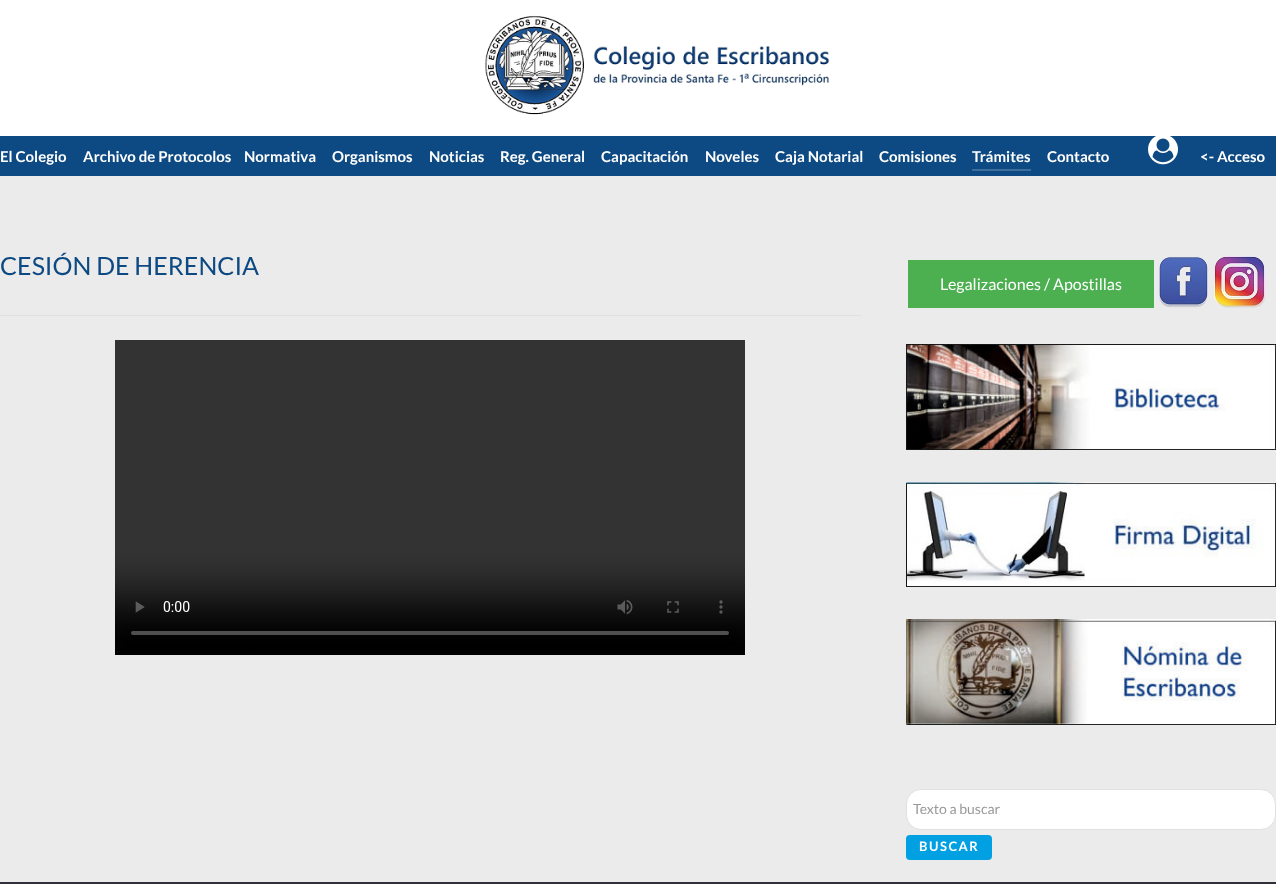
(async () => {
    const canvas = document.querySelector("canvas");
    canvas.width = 1276;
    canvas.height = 884;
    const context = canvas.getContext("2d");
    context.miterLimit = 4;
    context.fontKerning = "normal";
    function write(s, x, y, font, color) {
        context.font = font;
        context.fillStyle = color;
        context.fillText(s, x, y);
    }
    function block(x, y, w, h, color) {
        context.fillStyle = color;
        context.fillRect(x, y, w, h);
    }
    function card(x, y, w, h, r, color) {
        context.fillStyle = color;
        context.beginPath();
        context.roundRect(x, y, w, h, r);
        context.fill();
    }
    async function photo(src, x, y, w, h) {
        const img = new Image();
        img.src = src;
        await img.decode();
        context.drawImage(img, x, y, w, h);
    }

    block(0, 0, 1276, 884, "rgb(236, 235, 235)");
    block(0, 0, 1276, 136, "rgb(255, 255, 255)");
    await photo("media/1.png", 485, 15, 345, 100);
    block(0, 136, 1276, 40, "rgb(13, 73, 130)");
    write("El Colegio", 0, 162, "bold 15px Lato", "rgb(255, 255, 255)");
    write("Archivo de Protocolos", 83, 162, "bold 15px Lato", "rgb(255, 255, 255)");
    write("Normativa", 244, 162, "bold 15px Lato", "rgb(255, 255, 255)");
    write("Organismos", 332, 162, "bold 15px Lato", "rgb(255, 255, 255)");
    write("Noticias", 429, 162, "bold 15px Lato", "rgb(255, 255, 255)");
    write("Reg. General", 500, 162, "bold 15px Lato", "rgb(255, 255, 255)");
    write("Capacitación", 601, 162, "bold 15px Lato", "rgb(255, 255, 255)");
    write("Noveles", 705, 162, "bold 15px Lato", "rgb(255, 255, 255)");
    write("Caja Notarial", 775, 162, "bold 15px Lato", "rgb(255, 255, 255)");
    write("Comisiones", 879, 162, "bold 15px Lato", "rgb(255, 255, 255)");
    block(972, 169, 59, 2, "rgb(61, 109, 155)");
    write("Trámites", 972, 162, "bold 15px Lato", "rgb(255, 255, 255)");
    write("Contacto", 1047, 162, "bold 15px Lato", "rgb(255, 255, 255)");
    await photo("media/2.png", 1148, 136, 30, 29);
    write("<- Acceso", 1200, 162, "bold 15px Lato", "rgb(255, 255, 255)");
    write("CESIÓN DE HERENCIA", 0, 275, "25px Lato", "rgb(13, 73, 130)");
    block(0, 315, 861, 1, "rgb(224, 224, 229)");
    await photo("media/3.png", 115, 340, 630, 315);
    block(908, 260, 246, 48, "rgb(76, 175, 80)");
    write("Legalizaciones / Apostillas", 940, 290, "16px Lato", "rgb(255, 255, 255)");
    await photo("media/4.png", 1159, 257, 49, 51);
    await photo("media/5.png", 1214, 256, 52, 52);
    await photo("media/6.png", 906, 344, 370, 106);
    await photo("media/7.png", 906, 482, 370, 105);
    await photo("media/8.png", 906, 619, 370, 106);
    context.beginPath();
    context.roundRect(906.5, 789.5, 369, 40, 14.5);
    context.fill();
    context.strokeStyle = "rgb(224, 224, 229)";
    context.stroke();
    write("Texto a buscar", 913, 814, "14px Lato", "rgb(153, 153, 153)");
    card(906, 835, 86, 25, 4, "rgb(0, 160, 227)");
    context.letterSpacing = "1.5px";
    write("BUSCAR", 919, 851, "bold 13px Lato", "rgb(255, 255, 255)");
    block(0, 882, 1276, 2, "rgb(49, 47, 56)");
})();
